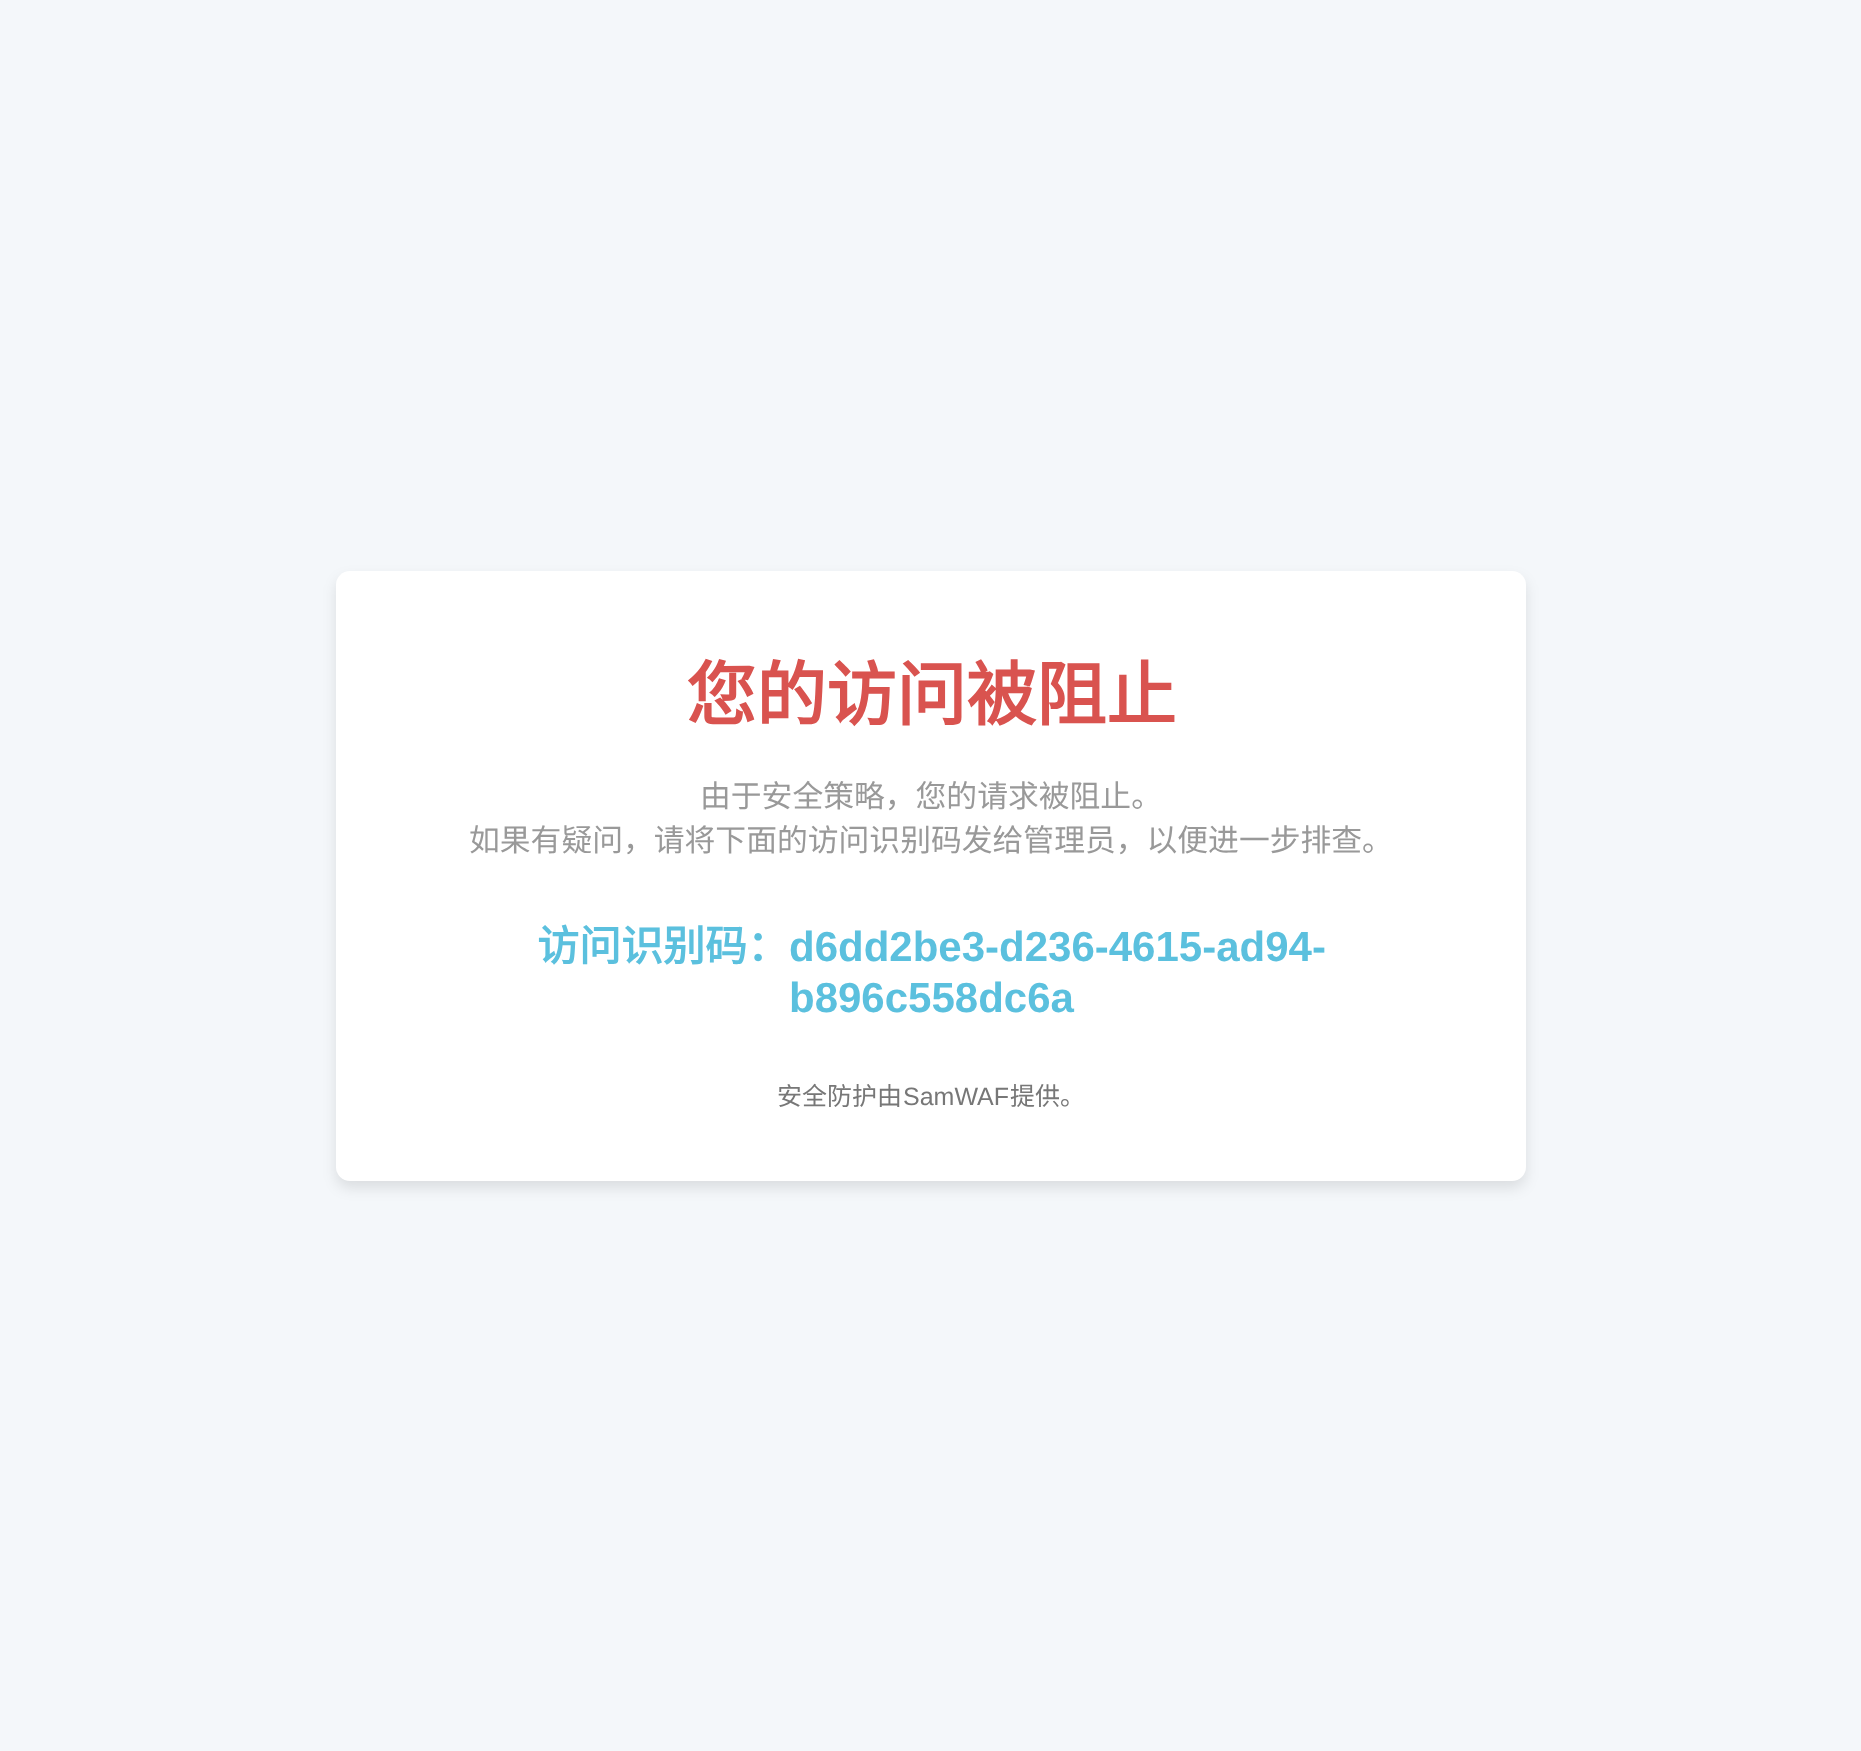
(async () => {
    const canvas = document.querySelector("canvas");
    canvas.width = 1861;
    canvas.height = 1751;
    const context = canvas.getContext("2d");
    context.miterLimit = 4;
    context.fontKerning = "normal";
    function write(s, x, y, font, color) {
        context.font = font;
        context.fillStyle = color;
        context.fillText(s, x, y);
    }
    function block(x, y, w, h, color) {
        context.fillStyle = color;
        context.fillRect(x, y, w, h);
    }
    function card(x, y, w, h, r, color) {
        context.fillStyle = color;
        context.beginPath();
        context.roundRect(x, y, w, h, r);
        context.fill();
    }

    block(0, 0, 1861, 1751, "rgb(244, 247, 250)");
    context.fillStyle = "rgba(0, 0, 0, 0.1)";
    context.filter = "blur(7px)";
    context.beginPath();
    context.roundRect(336, 578, 1190, 610, 14);
    context.fill();
    context.filter = "none";
    card(336, 571, 1190, 610, 14, "rgb(255, 255, 255)");
    write("您的访问被阻止", 686, 720, "bold 70px Noto Sans CJK SC", "rgb(217, 83, 79)");
    write("由于安全策略，您的请求被阻止。", 700, 807, "30.8px Noto Sans CJK SC", "rgb(153, 153, 153)");
    write("如果有疑问，请将下面的访问识别码发给管理员，以便进一步排查。", 469, 851, "30.8px Noto Sans CJK SC", "rgb(153, 153, 153)");
    write("访问识别码：", 537, 961, "bold 42px Noto Sans CJK SC", "rgb(91, 192, 222)");
    write("d6dd2be3-d236-4615-ad94-", 789, 961, "bold 42px Liberation Sans", "rgb(91, 192, 222)");
    write("b896c558dc6a", 789, 1012, "bold 42px Liberation Sans", "rgb(91, 192, 222)");
    write("安全防护由", 777, 1105, "25px Noto Sans CJK SC", "rgb(119, 119, 119)");
    write("SamWAF", 903, 1105, "25px Liberation Sans", "rgb(119, 119, 119)");
    write("提供。", 1010, 1105, "25px Noto Sans CJK SC", "rgb(119, 119, 119)");
})();
